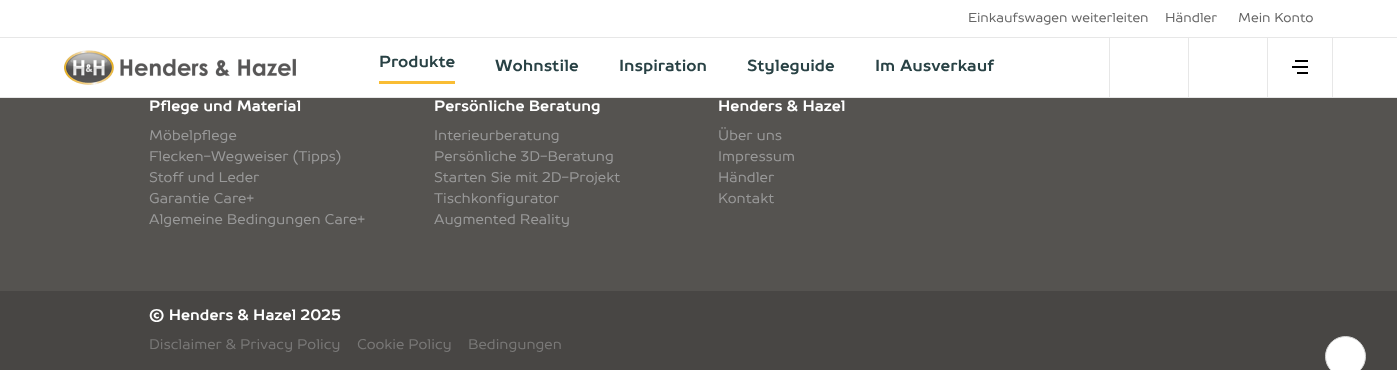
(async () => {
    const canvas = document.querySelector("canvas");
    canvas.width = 1397;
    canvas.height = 370;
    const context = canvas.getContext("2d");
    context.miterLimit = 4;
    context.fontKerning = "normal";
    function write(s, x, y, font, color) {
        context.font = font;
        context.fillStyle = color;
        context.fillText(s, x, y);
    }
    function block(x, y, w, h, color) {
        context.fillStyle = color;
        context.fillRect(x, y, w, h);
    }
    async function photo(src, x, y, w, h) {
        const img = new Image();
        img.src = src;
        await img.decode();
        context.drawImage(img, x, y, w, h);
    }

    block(0, 0, 1397, 370, "rgb(85, 83, 80)");
    block(0, 0, 1397, 97, "rgb(255, 255, 255)");
    block(0, 37, 1397, 1, "rgb(231, 231, 231)");
    write("Einkaufswagen weiterleiten", 968, 22, "13px 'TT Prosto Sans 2'", "rgb(102, 102, 102)");
    write("Händler", 1165, 22, "13px 'TT Prosto Sans 2'", "rgb(102, 102, 102)");
    write("Mein Konto", 1238, 22, "13px 'TT Prosto Sans 2'", "rgb(102, 102, 102)");
    block(0, 97, 1397, 1, "rgb(231, 231, 231)");
    await photo("media/1.png", 64, 50, 232, 35);
    write("Produkte", 379, 67, "16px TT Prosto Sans", "rgb(41, 66, 69)");
    block(379, 81, 76, 3, "rgb(249, 189, 52)");
    write("Wohnstile", 495, 71, "16px TT Prosto Sans", "rgb(41, 66, 69)");
    write("Inspiration", 619, 71, "16px TT Prosto Sans", "rgb(41, 66, 69)");
    write("Styleguide", 747, 71, "16px TT Prosto Sans", "rgb(41, 66, 69)");
    write("Im Ausverkauf", 875, 71, "16px TT Prosto Sans", "rgb(41, 66, 69)");
    block(1188, 38, 1, 59, "rgb(231, 231, 231)");
    block(1109, 38, 1, 59, "rgb(231, 231, 231)");
    block(1267, 38, 1, 59, "rgb(231, 231, 231)");
    block(1332, 38, 1, 59, "rgb(231, 231, 231)");
    block(1295, 60, 13, 2, "rgb(0, 0, 0)");
    block(1292, 66, 16, 2, "rgb(0, 0, 0)");
    block(1297, 72, 11, 2, "rgb(0, 0, 0)");
    write("Pflege und Material", 149, 111, "15px TT Prosto Sans", "rgb(255, 255, 255)");
    write("Möbelpflege", 149, 140, "14px 'TT Prosto Sans 2'", "rgb(153, 153, 153)");
    write("Flecken-Wegweiser (Tipps)", 149, 161, "14px 'TT Prosto Sans 2'", "rgb(153, 153, 153)");
    write("Stoff und Leder", 149, 182, "14px 'TT Prosto Sans 2'", "rgb(153, 153, 153)");
    write("Garantie Care+", 149, 203, "14px 'TT Prosto Sans 2'", "rgb(153, 153, 153)");
    write("Algemeine Bedingungen Care+", 149, 224, "14px 'TT Prosto Sans 2'", "rgb(153, 153, 153)");
    write("Persönliche Beratung", 434, 111, "15px TT Prosto Sans", "rgb(255, 255, 255)");
    write("Interieurberatung", 434, 140, "14px 'TT Prosto Sans 2'", "rgb(153, 153, 153)");
    write("Persönliche 3D-Beratung", 434, 161, "14px 'TT Prosto Sans 2'", "rgb(153, 153, 153)");
    write("Starten Sie mit 2D-Projekt", 434, 182, "14px 'TT Prosto Sans 2'", "rgb(153, 153, 153)");
    write("Tischkonfigurator", 434, 203, "14px 'TT Prosto Sans 2'", "rgb(153, 153, 153)");
    write("Augmented Reality", 434, 224, "14px 'TT Prosto Sans 2'", "rgb(153, 153, 153)");
    write("Henders & Hazel", 718, 111, "15px TT Prosto Sans", "rgb(255, 255, 255)");
    write("Über uns", 718, 140, "14px 'TT Prosto Sans 2'", "rgb(153, 153, 153)");
    write("Impressum", 718, 161, "14px 'TT Prosto Sans 2'", "rgb(153, 153, 153)");
    write("Händler", 718, 182, "14px 'TT Prosto Sans 2'", "rgb(153, 153, 153)");
    write("Kontakt", 718, 203, "14px 'TT Prosto Sans 2'", "rgb(153, 153, 153)");
    block(0, 291, 1397, 79, "rgb(72, 70, 68)");
    write("© Henders & Hazel 2025", 149, 320, "15px TT Prosto Sans", "rgb(255, 255, 255)");
    write("Disclaimer & Privacy Policy", 149, 349, "14px 'TT Prosto Sans 2'", "rgb(121, 120, 119)");
    write("Cookie Policy", 357, 349, "14px 'TT Prosto Sans 2'", "rgb(121, 120, 119)");
    write("Bedingungen", 468, 349, "14px 'TT Prosto Sans 2'", "rgb(121, 120, 119)");
    context.fillStyle = "rgb(255, 255, 255)";
    context.beginPath();
    context.arc(1345.5, 356.5, 20, 0, Math.PI * 2);
    context.fill();
    context.strokeStyle = "rgb(213, 213, 213)";
    context.stroke();
})();
